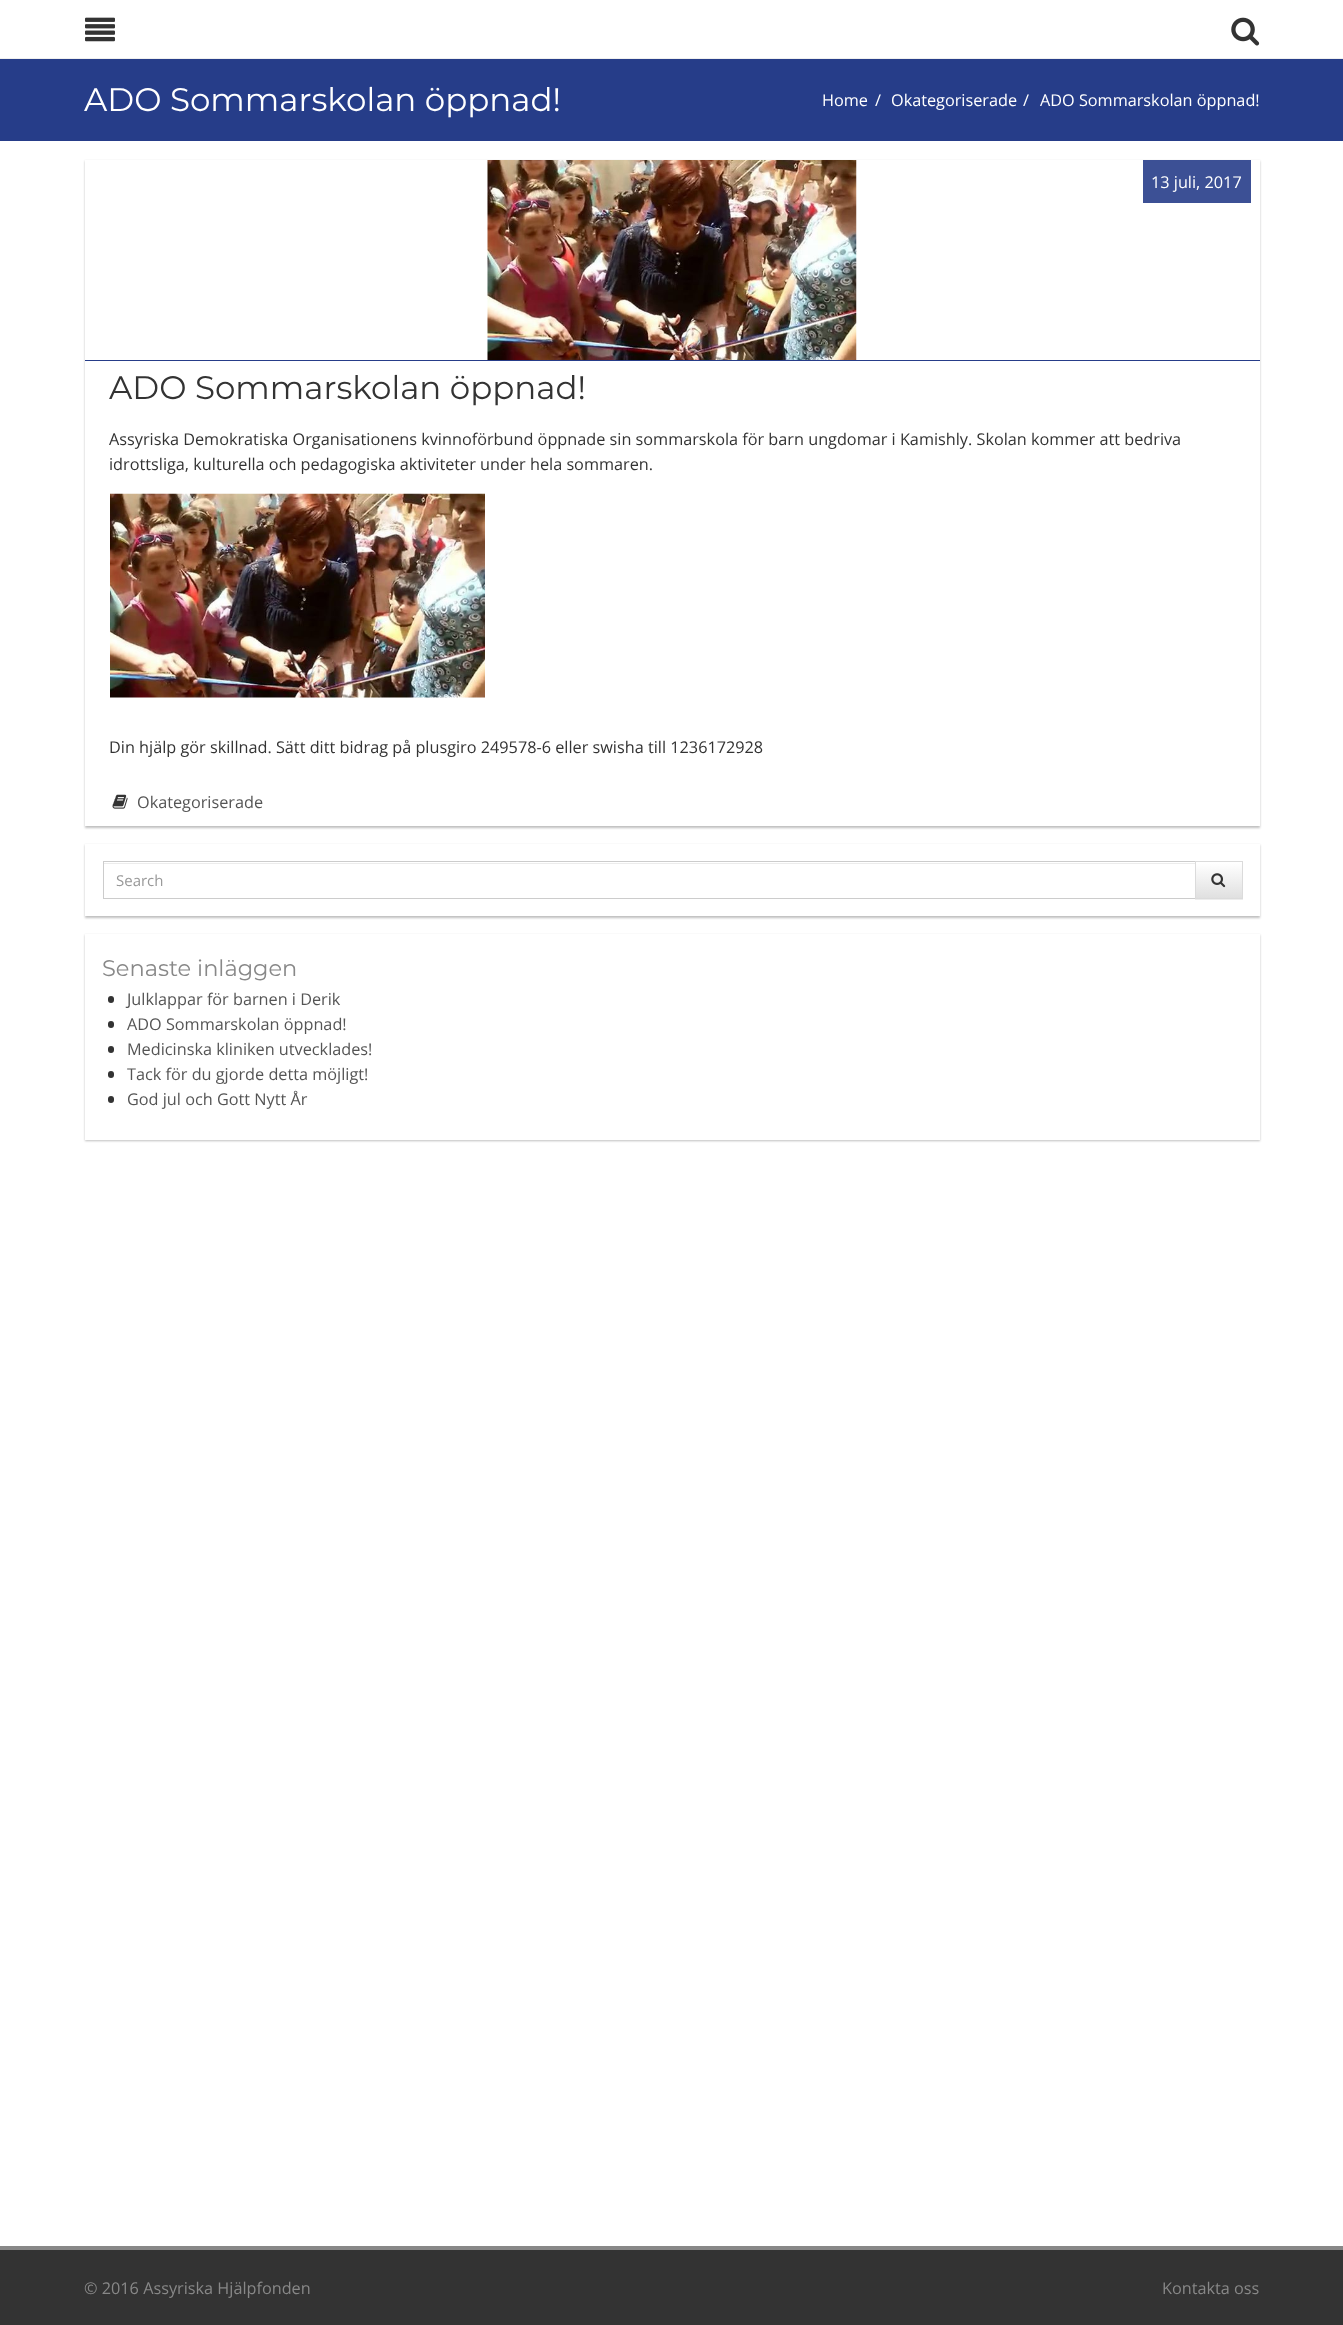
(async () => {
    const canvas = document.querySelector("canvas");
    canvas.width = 1343;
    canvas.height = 2325;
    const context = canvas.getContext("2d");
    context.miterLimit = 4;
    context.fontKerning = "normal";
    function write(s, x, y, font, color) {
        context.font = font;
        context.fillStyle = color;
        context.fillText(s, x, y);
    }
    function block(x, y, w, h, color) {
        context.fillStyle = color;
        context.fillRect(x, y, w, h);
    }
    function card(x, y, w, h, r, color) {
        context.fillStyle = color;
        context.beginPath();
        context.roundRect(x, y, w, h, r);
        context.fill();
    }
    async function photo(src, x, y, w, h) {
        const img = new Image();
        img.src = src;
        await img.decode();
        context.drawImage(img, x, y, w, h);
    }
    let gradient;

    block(0, 0, 1343, 2325, "rgb(255, 255, 255)");
    block(0, 58, 1343, 1, "rgb(239, 239, 239)");
    await photo("media/1.png", 85, 17, 30, 25);
    await photo("media/2.png", 1231, 17, 29, 29);
    block(0, 59, 1343, 82, "rgb(38, 61, 137)");
    write("ADO Sommarskolan öppnad!", 84, 111, "100 32.5px Montserrat", "rgb(255, 255, 255)");
    write("Home", 822, 106, "16.25px Open Sans", "rgb(255, 255, 255)");
    write("/", 875, 106, "16.25px Open Sans", "rgb(255, 255, 255)");
    write("Okategoriserade", 891, 106, "16.25px Open Sans", "rgb(255, 255, 255)");
    write("/", 1023, 106, "16.25px Open Sans", "rgb(255, 255, 255)");
    write("ADO Sommarskolan öppnad!", 1040, 106, "16.25px Open Sans", "rgb(255, 255, 255)");
    context.save();
    context.beginPath();
    context.moveTo(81, 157);
    context.lineTo(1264, 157);
    context.lineTo(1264, 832);
    context.lineTo(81, 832);
    context.closePath();
    context.moveTo(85, 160);
    context.lineTo(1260, 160);
    context.lineTo(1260, 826);
    context.lineTo(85, 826);
    context.closePath();
    context.clip("evenodd");
    context.fillStyle = "rgba(0, 0, 0, 0.25)";
    context.filter = "blur(1px)";
    context.beginPath();
    context.rect(85, 161, 1175, 667);
    context.fill();
    context.filter = "none";
    context.restore();
    block(85, 360, 1175, 1, "rgb(38, 61, 137)");
    await photo("media/3.png", 487, 160, 370, 200);
    block(1143, 160, 108, 43, "rgb(60, 80, 149)");
    write("13 juli, 2017", 1151, 188, "16.25px Open Sans", "rgb(255, 255, 255)");
    write("ADO Sommarskolan öppnad!", 109, 399, "100 32.5px Montserrat", "rgb(51, 51, 51)");
    write("Assyriska Demokratiska Organisationens kvinnoförbund öppnade sin sommarskola för barn ungdomar i Kamishly. Skolan kommer att bedriva", 109, 445, "16.25px Open Sans", "rgb(51, 51, 51)");
    write("idrottsliga, kulturella och pedagogiska aktiviteter under hela sommaren.", 109, 470, "16.25px Open Sans", "rgb(51, 51, 51)");
    await photo("media/4.png", 110, 493, 375, 205);
    write("Din hjälp gör skillnad. Sätt ditt bidrag på plusgiro 249578-6 eller swisha till 1236172928", 109, 753, "16.25px Open Sans", "rgb(51, 51, 51)");
    await photo("media/5.png", 112, 794, 16, 15);
    write("Okategoriserade", 137, 808, "16.25px Open Sans", "rgb(85, 85, 85)");
    context.save();
    context.beginPath();
    context.moveTo(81, 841);
    context.lineTo(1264, 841);
    context.lineTo(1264, 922);
    context.lineTo(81, 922);
    context.closePath();
    context.moveTo(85, 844);
    context.lineTo(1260, 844);
    context.lineTo(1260, 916);
    context.lineTo(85, 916);
    context.closePath();
    context.clip("evenodd");
    context.fillStyle = "rgba(0, 0, 0, 0.25)";
    context.filter = "blur(1px)";
    context.beginPath();
    context.rect(85, 845, 1175, 73);
    context.fill();
    context.filter = "none";
    context.restore();
    block(104, 863, 1091, 1, "rgb(236, 236, 236)");
    context.strokeStyle = "rgb(204, 204, 204)";
    context.strokeRect(103.5, 861.5, 1092, 37);
    write("Search", 116, 886, "15px Open Sans", "rgb(153, 153, 153)");
    context.fillStyle = "rgba(0, 0, 0, 0.07)";
    context.filter = "blur(0.5px)";
    context.beginPath();
    context.rect(1195, 863, 48, 37);
    context.fill();
    context.filter = "none";
    gradient = context.createLinearGradient(1219, 863, 1219, 898);
    gradient.addColorStop(0, "rgb(255, 255, 255)");
    gradient.addColorStop(1, "rgb(224, 224, 224)");
    context.fillStyle = gradient;
    context.fillRect(1196, 863, 46, 35);
    context.strokeStyle = "rgb(219, 219, 219)";
    context.strokeRect(1195.5, 861.5, 47, 37);
    await photo("media/6.png", 1211, 873, 15, 15);
    context.save();
    context.beginPath();
    context.moveTo(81, 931);
    context.lineTo(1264, 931);
    context.lineTo(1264, 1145);
    context.lineTo(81, 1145);
    context.closePath();
    context.moveTo(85, 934);
    context.lineTo(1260, 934);
    context.lineTo(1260, 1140);
    context.lineTo(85, 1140);
    context.closePath();
    context.clip("evenodd");
    context.fillStyle = "rgba(0, 0, 0, 0.25)";
    context.filter = "blur(1px)";
    context.beginPath();
    context.rect(85, 935, 1175, 206);
    context.fill();
    context.filter = "none";
    context.restore();
    write("Senaste inläggen", 102, 976, "100 22.5px Montserrat", "rgb(136, 136, 136)");
    card(108, 996, 6, 7, 3, "rgb(51, 51, 51)");
    write("Julklappar för barnen i Derik", 127, 1005, "16.25px Open Sans", "rgb(85, 85, 85)");
    card(108, 1021, 6, 7, 3, "rgb(51, 51, 51)");
    write("ADO Sommarskolan öppnad!", 127, 1030, "16.25px Open Sans", "rgb(85, 85, 85)");
    card(108, 1046, 6, 7, 3, "rgb(51, 51, 51)");
    write("Medicinska kliniken utvecklades!", 127, 1055, "16.25px Open Sans", "rgb(85, 85, 85)");
    card(108, 1071, 6, 7, 3, "rgb(51, 51, 51)");
    write("Tack för du gjorde detta möjligt!", 127, 1080, "16.25px Open Sans", "rgb(85, 85, 85)");
    card(108, 1096, 6, 7, 3, "rgb(51, 51, 51)");
    write("God jul och Gott Nytt År", 127, 1105, "16.25px Open Sans", "rgb(85, 85, 85)");
    block(0, 2250, 1343, 75, "rgb(51, 51, 51)");
    block(0, 2246, 1343, 4, "rgb(136, 136, 136)");
    write("© 2016 Assyriska Hjälpfonden", 84, 2294, "16.25px Open Sans", "rgb(136, 136, 136)");
    write("Kontakta oss", 1162, 2294, "16.25px Open Sans", "rgb(136, 136, 136)");
})();
